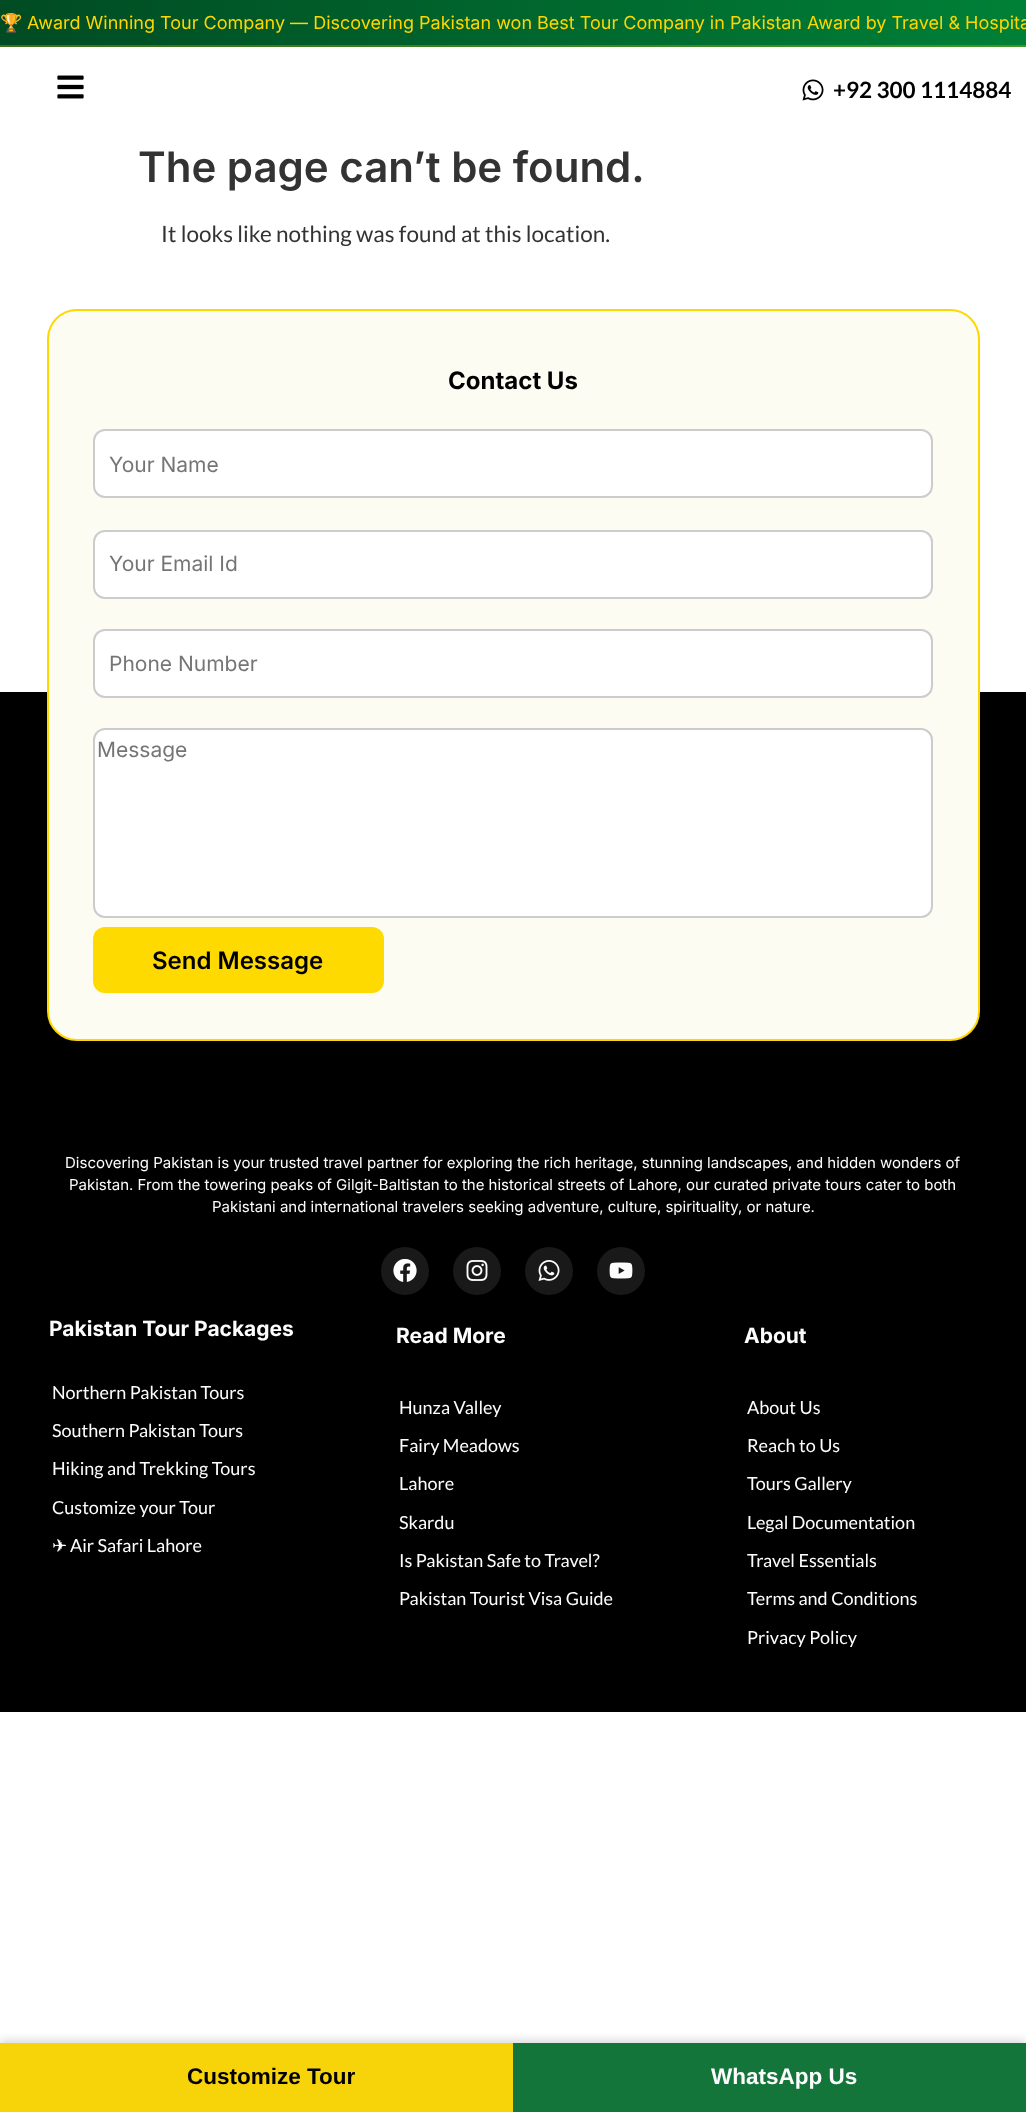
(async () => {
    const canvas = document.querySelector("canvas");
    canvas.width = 1026;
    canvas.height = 2112;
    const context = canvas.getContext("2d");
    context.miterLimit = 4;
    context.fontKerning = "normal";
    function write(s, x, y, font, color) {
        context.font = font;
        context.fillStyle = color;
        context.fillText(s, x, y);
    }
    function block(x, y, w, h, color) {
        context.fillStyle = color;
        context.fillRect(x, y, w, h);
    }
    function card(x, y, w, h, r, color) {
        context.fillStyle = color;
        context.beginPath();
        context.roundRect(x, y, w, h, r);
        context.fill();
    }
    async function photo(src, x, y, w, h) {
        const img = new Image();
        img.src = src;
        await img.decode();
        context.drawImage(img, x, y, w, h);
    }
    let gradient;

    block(0, 0, 1026, 2112, "rgb(255, 255, 255)");
    gradient = context.createLinearGradient(0, 23, 1026, 22);
    gradient.addColorStop(0, "rgb(0, 75, 35)");
    gradient.addColorStop(1, "rgb(0, 128, 55)");
    context.fillStyle = gradient;
    context.fillRect(0, 0, 1026, 45);
    gradient = context.createLinearGradient(0, 23, 1026, 22);
    gradient.addColorStop(0, "rgb(64, 110, 26)");
    gradient.addColorStop(1, "rgb(64, 150, 41)");
    context.fillStyle = gradient;
    context.fillRect(0, 45, 1026, 2);
    write("🏆", 0, 29, "18px Noto Color Emoji", "rgb(255, 215, 0)");
    write("Award Winning Tour Company — Discovering Pakistan won Best Tour Company in Pakistan Award by Travel & Hospita", 27, 29, "18px Inter", "rgb(255, 215, 0)");
    await photo("media/1.png", 57, 75, 27, 24);
    await photo("media/2.png", 802, 79, 22, 22);
    write("+92 300 1114884", 833, 98, "bold 22.5px Lato", "rgb(0, 0, 0)");
    write("The page can’t be found.", 138, 182, "600 42px Inter", "rgb(51, 51, 51)");
    write("It looks like nothing was found at this location.", 161, 242, "22.5px Lato", "rgb(51, 51, 51)");
    block(0, 692, 1026, 1020, "rgb(0, 0, 0)");
    context.fillStyle = "rgb(252, 252, 243)";
    context.beginPath();
    context.roundRect(48, 310, 931, 730, 29);
    context.fill();
    context.strokeStyle = "rgb(255, 215, 0)";
    context.lineWidth = 2;
    context.stroke();
    write("Contact Us", 448, 389, "bold 24px Inter", "rgb(0, 0, 0)");
    context.fillStyle = "rgb(255, 255, 255)";
    context.beginPath();
    context.roundRect(94, 430, 838, 67, 11);
    context.fill();
    context.strokeStyle = "rgb(204, 204, 204)";
    context.stroke();
    write("Your Name", 109, 472, "21px Inter", "rgb(117, 117, 117)");
    context.fillStyle = "rgb(255, 255, 255)";
    context.beginPath();
    context.roundRect(94, 531, 838, 67, 11);
    context.fill();
    context.stroke();
    write("Your Email Id", 109, 571, "21px Inter", "rgb(117, 117, 117)");
    context.fillStyle = "rgb(255, 255, 255)";
    context.beginPath();
    context.roundRect(94, 630, 838, 67, 11);
    context.fill();
    context.stroke();
    write("Phone Number", 109, 671, "21px Inter", "rgb(117, 117, 117)");
    context.fillStyle = "rgb(255, 255, 255)";
    context.beginPath();
    context.roundRect(94, 729, 838, 188, 11);
    context.fill();
    context.stroke();
    write("Message", 97, 757, "21px Inter", "rgb(117, 117, 117)");
    card(93, 927, 291, 66, 12, "rgb(255, 218, 0)");
    write("Send Message", 152, 969, "600 24px Inter", "rgb(0, 0, 0)");
    write("Discovering Pakistan is your trusted travel partner for exploring the rich heritage, stunning landscapes, and hidden wonders of", 65, 1168, "15px Inter", "rgb(253, 253, 253)");
    write("Pakistan. From the towering peaks of Gilgit-Baltistan to the historical streets of Lahore, our curated private tours cater to both", 69, 1190, "15px Inter", "rgb(253, 253, 253)");
    write("Pakistani and international travelers seeking adventure, culture, spirituality, or nature.", 212, 1212, "15px Inter", "rgb(253, 253, 253)");
    context.fillStyle = "rgb(25, 25, 25)";
    context.beginPath();
    context.arc(405, 1271, 24, 0, Math.PI * 2);
    context.fill();
    await photo("media/3.png", 393, 1259, 24, 23);
    context.beginPath();
    context.arc(477, 1271, 24, 0, Math.PI * 2);
    context.fill();
    await photo("media/4.png", 466, 1260, 22, 21);
    context.beginPath();
    context.arc(549, 1271, 24, 0, Math.PI * 2);
    context.fill();
    await photo("media/5.png", 538, 1260, 22, 21);
    context.beginPath();
    context.arc(621, 1271, 24, 0, Math.PI * 2);
    context.fill();
    await photo("media/6.png", 609, 1262, 24, 17);
    write("Pakistan Tour Packages", 49, 1336, "bold 21px Inter", "rgb(253, 253, 253)");
    write("Northern Pakistan Tours", 52, 1399, "18px Lato", "rgb(253, 253, 253)");
    write("Southern Pakistan Tours", 52, 1437, "18px Lato", "rgb(253, 253, 253)");
    write("Hiking and Trekking Tours", 52, 1475, "18px Lato", "rgb(253, 253, 253)");
    write("Customize your Tour", 52, 1514, "18px Lato", "rgb(253, 253, 253)");
    write("✈", 52, 1552, "18px DejaVu Sans", "rgb(253, 253, 253)");
    write("Air Safari Lahore", 70, 1552, "18px Lato", "rgb(253, 253, 253)");
    write("Read More", 396, 1343, "bold 21px Inter", "rgb(253, 253, 253)");
    write("Hunza Valley", 399, 1414, "18px Lato", "rgb(253, 253, 253)");
    write("Fairy Meadows", 399, 1452, "18px Lato", "rgb(253, 253, 253)");
    write("Lahore", 399, 1490, "18px Lato", "rgb(253, 253, 253)");
    write("Skardu", 399, 1529, "18px Lato", "rgb(253, 253, 253)");
    write("Is Pakistan Safe to Travel?", 399, 1567, "18px Lato", "rgb(253, 253, 253)");
    write("Pakistan Tourist Visa Guide", 399, 1605, "18px Lato", "rgb(253, 253, 253)");
    write("About", 744, 1343, "bold 21px Inter", "rgb(253, 253, 253)");
    write("About Us", 747, 1414, "18px Lato", "rgb(253, 253, 253)");
    write("Reach to Us", 747, 1452, "18px Lato", "rgb(253, 253, 253)");
    write("Tours Gallery", 747, 1490, "18px Lato", "rgb(253, 253, 253)");
    write("Legal Documentation", 747, 1529, "18px Lato", "rgb(253, 253, 253)");
    write("Travel Essentials", 747, 1567, "18px Lato", "rgb(253, 253, 253)");
    write("Terms and Conditions", 747, 1605, "18px Lato", "rgb(253, 253, 253)");
    write("Privacy Policy", 747, 1644, "18px Lato", "rgb(253, 253, 253)");
    context.fillStyle = "rgba(0, 0, 0, 0.15)";
    context.filter = "blur(4.5px)";
    context.beginPath();
    context.rect(0, 2040, 1026, 69);
    context.fill();
    context.filter = "none";
    block(0, 2043, 513, 69, "rgb(247, 212, 9)");
    write("Customize Tour", 187, 2084, "bold 22.5px Liberation Sans", "rgb(0, 0, 0)");
    block(513, 2043, 513, 69, "rgb(20, 117, 59)");
    write("WhatsApp Us", 711, 2084, "bold 22.5px Liberation Sans", "rgb(253, 253, 253)");
})();
